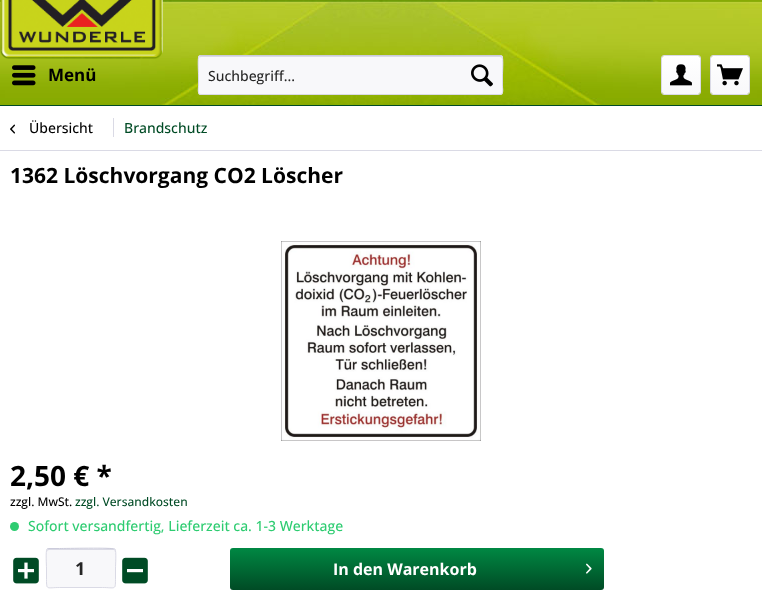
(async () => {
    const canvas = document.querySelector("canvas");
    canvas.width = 762;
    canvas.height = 594;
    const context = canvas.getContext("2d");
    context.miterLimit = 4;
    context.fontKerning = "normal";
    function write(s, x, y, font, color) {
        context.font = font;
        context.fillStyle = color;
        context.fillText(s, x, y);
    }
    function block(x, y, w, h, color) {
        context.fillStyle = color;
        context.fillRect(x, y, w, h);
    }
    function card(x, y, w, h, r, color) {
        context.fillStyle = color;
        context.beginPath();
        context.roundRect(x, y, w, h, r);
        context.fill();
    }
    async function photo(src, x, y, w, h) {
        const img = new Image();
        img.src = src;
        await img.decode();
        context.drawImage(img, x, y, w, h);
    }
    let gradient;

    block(0, 0, 762, 594, "rgb(255, 255, 255)");
    await photo("media/1.png", 0, 0, 762, 105);
    block(0, 105, 762, 1, "rgb(0, 75, 37)");
    await photo("media/2.png", 0, 0, 163, 59);
    await photo("media/3.png", 12, 65, 24, 21);
    write("Menü", 48, 81, "bold 17px Open Sans", "rgb(0, 0, 0)");
    card(198, 55, 305, 40, 3, "rgb(248, 248, 250)");
    context.fillStyle = "rgb(218, 218, 229)";
    context.beginPath();
    context.moveTo(201, 57);
    context.lineTo(500, 57);
    context.bezierCurveTo(501, 57, 502, 58, 502, 59);
    context.bezierCurveTo(502, 58, 502, 56, 500, 56);
    context.lineTo(200, 56);
    context.lineTo(199, 59);
    context.bezierCurveTo(199, 58, 200, 57, 201, 57);
    context.closePath();
    context.fill();
    context.beginPath();
    context.moveTo(199, 56);
    context.lineTo(201, 55.5);
    context.lineTo(500, 55.5);
    context.lineTo(502, 56);
    context.strokeStyle = "rgb(203, 203, 219)";
    context.stroke();
    context.beginPath();
    context.moveTo(502, 56);
    context.bezierCurveTo(503.5, 58, 502.5, 72, 502.5, 75);
    context.lineTo(502.5, 86.5);
    context.bezierCurveTo(502.5, 88, 504, 94.5, 500, 94.5);
    context.lineTo(201, 94.5);
    context.bezierCurveTo(197, 94.5, 198.5, 88, 198.5, 86.5);
    context.lineTo(198.5, 75);
    context.bezierCurveTo(198.5, 72, 197.5, 58, 199, 56);
    context.strokeStyle = "rgb(218, 218, 229)";
    context.stroke();
    write("Suchbegriff...", 208, 81, "500 14px Open Sans", "rgb(38, 38, 38)");
    await photo("media/4.png", 471, 64, 22, 23);
    gradient = context.createLinearGradient(681, 56, 681, 94);
    gradient.addColorStop(0, "rgb(255, 255, 255)");
    gradient.addColorStop(1, "rgb(248, 248, 250)");
    context.fillStyle = gradient;
    context.beginPath();
    context.roundRect(662, 56, 38, 38, 2);
    context.fill();
    context.beginPath();
    context.roundRect(661.5, 55.5, 39, 39, 2.5);
    context.stroke();
    await photo("media/5.png", 670, 64, 22, 22);
    gradient = context.createLinearGradient(730, 56, 730, 94);
    gradient.addColorStop(0, "rgb(255, 255, 255)");
    gradient.addColorStop(1, "rgb(248, 248, 250)");
    context.fillStyle = gradient;
    context.beginPath();
    context.roundRect(711, 56, 38, 38, 2);
    context.fill();
    context.beginPath();
    context.roundRect(710.5, 55.5, 39, 39, 2.5);
    context.stroke();
    await photo("media/6.png", 717, 64, 26, 22);
    block(0, 150, 762, 1, "rgb(218, 218, 229)");
    await photo("media/7.png", 10, 124, 5, 10);
    write("Übersicht", 29, 133, "500 14px Open Sans", "rgb(0, 0, 0)");
    block(113, 118, 1, 19, "rgb(218, 218, 229)");
    write("Brandschutz", 124, 133, "500 14px Open Sans", "rgb(0, 75, 37)");
    write("1362 Löschvorgang CO2 Löscher", 10, 183, "bold 21px Open Sans", "rgb(0, 0, 0)");
    await photo("media/8.png", 281, 241, 200, 200);
    write("2,50 € *", 10, 486, "bold 28px Open Sans", "rgb(0, 0, 0)");
    write("zzgl. MwSt.", 10, 506, "500 12px Open Sans", "rgb(0, 0, 0)");
    write("zzgl. Versandkosten", 75, 506, "500 12px Open Sans", "rgb(0, 75, 37)");
    context.fillStyle = "rgb(46, 204, 113)";
    context.beginPath();
    context.arc(14.5, 526.5, 4.5, 0, Math.PI * 2);
    context.fill();
    write("Sofort versandfertig, Lieferzeit ca. 1-3 Werktage", 28, 531, "500 14px Open Sans", "rgb(46, 204, 113)");
    await photo("media/9.png", 13, 557, 26, 27);
    card(46, 548, 70, 40, 3, "rgb(248, 248, 250)");
    context.fillStyle = "rgb(218, 218, 229)";
    context.beginPath();
    context.moveTo(49, 550);
    context.lineTo(114, 550);
    context.lineTo(115, 552);
    context.bezierCurveTo(115, 546, 106, 549, 102, 549);
    context.lineTo(60, 549);
    context.bezierCurveTo(56, 549, 47, 546, 47, 552);
    context.bezierCurveTo(47, 551, 48, 550, 49, 550);
    context.closePath();
    context.fill();
    context.beginPath();
    context.moveTo(47, 549);
    context.lineTo(49, 548.5);
    context.lineTo(59.5, 548.5);
    context.bezierCurveTo(66, 548.5, 112.5, 547.5, 114.5, 549);
    context.lineTo(115, 549);
    context.strokeStyle = "rgb(203, 203, 219)";
    context.stroke();
    context.beginPath();
    context.moveTo(115, 549);
    context.bezierCurveTo(116.5, 551, 115.5, 565, 115.5, 568);
    context.lineTo(115.5, 579.5);
    context.bezierCurveTo(115.5, 590.5, 115, 587.5, 102.5, 587.5);
    context.lineTo(59.5, 587.5);
    context.bezierCurveTo(47, 587.5, 46.5, 590.5, 46.5, 579.5);
    context.lineTo(46.5, 568);
    context.bezierCurveTo(46.5, 565, 45.5, 551, 47, 549);
    context.strokeStyle = "rgb(218, 218, 229)";
    context.stroke();
    write("1", 75, 575, "bold 18px Open Sans", "rgb(38, 38, 38)");
    await photo("media/10.png", 122, 557, 26, 27);
    gradient = context.createLinearGradient(417, 548, 417, 590);
    gradient.addColorStop(0, "rgb(0, 136, 67)");
    gradient.addColorStop(1, "rgb(0, 75, 37)");
    context.fillStyle = gradient;
    context.beginPath();
    context.roundRect(230, 548, 374, 42, 3);
    context.fill();
    write("In den Warenkorb", 333, 575, "bold 16px Open Sans", "rgb(255, 255, 255)");
    await photo("media/11.png", 586, 563, 6, 11);
})();
